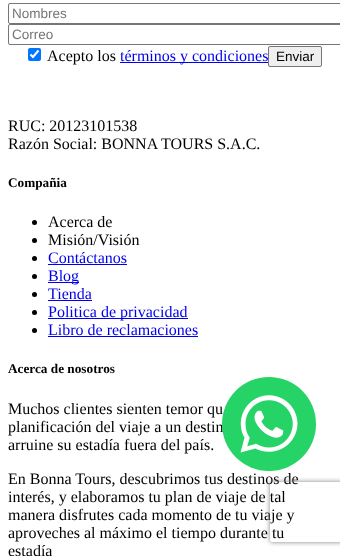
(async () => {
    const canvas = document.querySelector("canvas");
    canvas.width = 340;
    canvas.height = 556;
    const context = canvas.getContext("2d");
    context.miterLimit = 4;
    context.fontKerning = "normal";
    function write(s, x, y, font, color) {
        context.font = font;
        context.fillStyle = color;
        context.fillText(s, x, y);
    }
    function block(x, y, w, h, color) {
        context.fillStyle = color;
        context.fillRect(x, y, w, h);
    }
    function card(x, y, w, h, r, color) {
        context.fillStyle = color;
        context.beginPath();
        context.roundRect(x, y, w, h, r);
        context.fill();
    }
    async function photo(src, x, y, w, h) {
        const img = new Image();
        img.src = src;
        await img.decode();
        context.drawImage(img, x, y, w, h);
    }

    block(0, 0, 340, 556, "rgb(255, 255, 255)");
    context.beginPath();
    context.roundRect(8.5, 3.5, 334, 20, 1.5);
    context.strokeStyle = "rgb(118, 118, 118)";
    context.stroke();
    write("Nombres", 12, 18, "13.5px Liberation Sans", "rgb(117, 117, 117)");
    context.beginPath();
    context.roundRect(8.5, 24.5, 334, 20, 1.5);
    context.stroke();
    write("Correo", 12, 39, "13.5px Liberation Sans", "rgb(117, 117, 117)");
    card(28, 48, 13, 13, 2, "rgb(0, 117, 255)");
    context.beginPath();
    context.moveTo(30.5, 54.5);
    context.lineTo(33, 57);
    context.lineTo(38.5, 50.5);
    context.strokeStyle = "rgb(255, 255, 255)";
    context.lineWidth = 2.1;
    context.stroke();
    write("Acepto los", 47, 61, "16px Liberation Serif", "rgb(0, 0, 0)");
    block(120, 62, 148, 1, "rgb(0, 0, 238)");
    write("términos y condiciones", 120, 61, "16px Liberation Serif", "rgb(0, 0, 238)");
    context.fillStyle = "rgb(239, 239, 239)";
    context.beginPath();
    context.roundRect(268.5, 46.5, 53, 20, 1.5);
    context.fill();
    context.strokeStyle = "rgb(118, 118, 118)";
    context.lineWidth = 1;
    context.stroke();
    write("Enviar", 276, 61, "13.5px Liberation Sans", "rgb(0, 0, 0)");
    write("RUC: 20123101538", 8, 131, "16px Liberation Serif", "rgb(0, 0, 0)");
    write("Razón Social: BONNA TOURS S.A.C.", 8, 149, "16px Liberation Serif", "rgb(0, 0, 0)");
    write("Compañia", 8, 187, "bold 13.25px Liberation Serif", "rgb(0, 0, 0)");
    context.beginPath();
    context.arc(34.5, 222.5, 2.5, 0, Math.PI * 2);
    context.fill();
    write("Acerca de", 48, 227, "16px Liberation Serif", "rgb(0, 0, 0)");
    context.beginPath();
    context.arc(34.5, 240.5, 2.5, 0, Math.PI * 2);
    context.fill();
    write("Misión/Visión", 48, 245, "16px Liberation Serif", "rgb(0, 0, 0)");
    context.beginPath();
    context.arc(34.5, 258.5, 2.5, 0, Math.PI * 2);
    context.fill();
    write("Contáctanos", 48, 263, "16px Liberation Serif", "rgb(0, 0, 238)");
    block(48, 264, 79, 1, "rgb(0, 0, 238)");
    context.fillStyle = "rgb(0, 0, 0)";
    context.beginPath();
    context.arc(34.5, 276.5, 2.5, 0, Math.PI * 2);
    context.fill();
    block(48, 282, 31, 1, "rgb(0, 0, 238)");
    write("Blog", 48, 281, "16px Liberation Serif", "rgb(0, 0, 238)");
    context.fillStyle = "rgb(0, 0, 0)";
    context.beginPath();
    context.arc(34.5, 294.5, 2.5, 0, Math.PI * 2);
    context.fill();
    write("Tienda", 48, 299, "16px Liberation Serif", "rgb(0, 0, 238)");
    block(48, 300, 44, 1, "rgb(0, 0, 238)");
    context.fillStyle = "rgb(0, 0, 0)";
    context.beginPath();
    context.arc(34.5, 312.5, 2.5, 0, Math.PI * 2);
    context.fill();
    block(48, 318, 140, 1, "rgb(0, 0, 238)");
    write("Politica de privacidad", 48, 317, "16px Liberation Serif", "rgb(0, 0, 238)");
    context.fillStyle = "rgb(0, 0, 0)";
    context.beginPath();
    context.arc(34.5, 330.5, 2.5, 0, Math.PI * 2);
    context.fill();
    write("Libro de reclamaciones", 48, 335, "16px Liberation Serif", "rgb(0, 0, 238)");
    block(48, 336, 150, 1, "rgb(0, 0, 238)");
    write("Acerca de nosotros", 8, 373, "bold 13.25px Liberation Serif", "rgb(0, 0, 0)");
    write("Muchos clientes sienten temor qu", 8, 414, "16px Liberation Serif", "rgb(0, 0, 0)");
    write("planificación del viaje a un destin", 8, 432, "16px Liberation Serif", "rgb(0, 0, 0)");
    write("arruine su estadía fuera del país.", 8, 450, "16px Liberation Serif", "rgb(0, 0, 0)");
    write("En Bonna Tours, descubrimos tus destinos de", 8, 484, "16px Liberation Serif", "rgb(0, 0, 0)");
    write("interés, y elaboramos tu plan de viaje de tal", 8, 502, "16px Liberation Serif", "rgb(0, 0, 0)");
    write("manera disfrutes cada momento de tu viaje y", 8, 520, "16px Liberation Serif", "rgb(0, 0, 0)");
    write("aproveches al máximo el tiempo durante tu", 8, 538, "16px Liberation Serif", "rgb(0, 0, 0)");
    write("estadía", 8, 556, "16px Liberation Serif", "rgb(0, 0, 0)");
    context.fillStyle = "rgb(37, 211, 102)";
    context.beginPath();
    context.arc(269, 424, 47, 0, Math.PI * 2);
    context.fill();
    await photo("media/1.png", 240, 395, 58, 58);
    context.save();
    context.beginPath();
    context.moveTo(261, 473);
    context.lineTo(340, 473);
    context.lineTo(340, 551);
    context.lineTo(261, 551);
    context.closePath();
    context.moveTo(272, 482);
    context.lineTo(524, 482);
    context.bezierCurveTo(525, 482, 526, 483, 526, 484);
    context.lineTo(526, 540);
    context.bezierCurveTo(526, 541, 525, 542, 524, 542);
    context.lineTo(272, 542);
    context.bezierCurveTo(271, 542, 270, 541, 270, 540);
    context.lineTo(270, 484);
    context.bezierCurveTo(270, 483, 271, 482, 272, 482);
    context.closePath();
    context.clip("evenodd");
    context.fillStyle = "rgb(128, 128, 128)";
    context.filter = "blur(2.5px)";
    context.beginPath();
    context.roundRect(270, 482, 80, 60, 2);
    context.fill();
    context.filter = "none";
    context.restore();
})();
